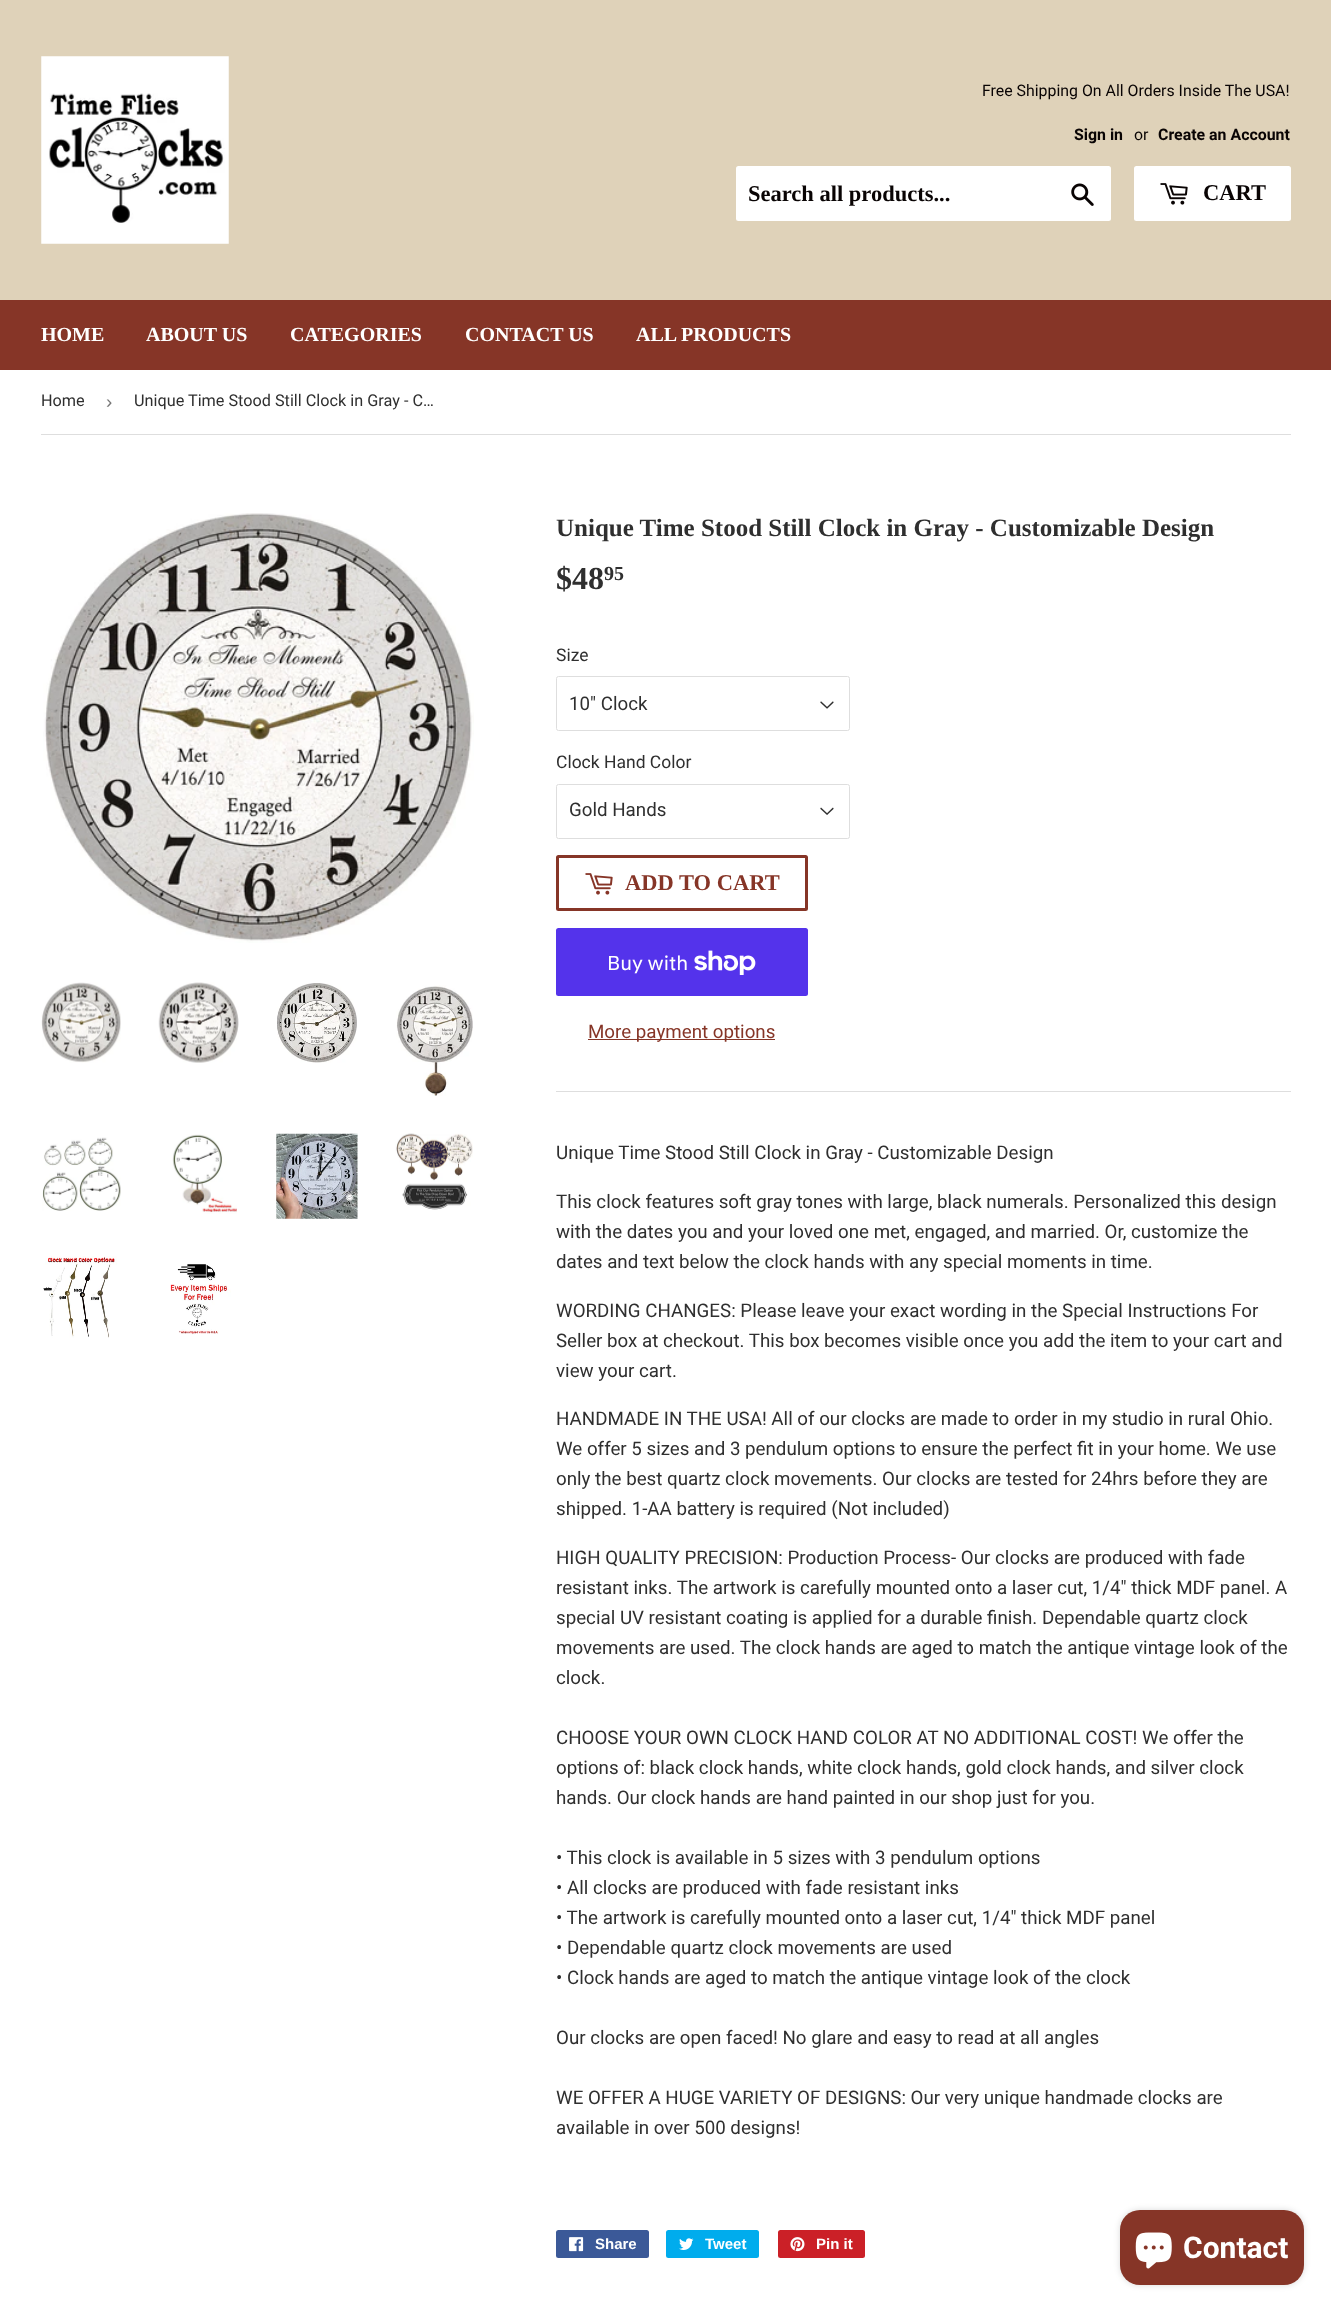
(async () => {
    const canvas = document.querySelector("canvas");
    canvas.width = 1331;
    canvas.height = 2311;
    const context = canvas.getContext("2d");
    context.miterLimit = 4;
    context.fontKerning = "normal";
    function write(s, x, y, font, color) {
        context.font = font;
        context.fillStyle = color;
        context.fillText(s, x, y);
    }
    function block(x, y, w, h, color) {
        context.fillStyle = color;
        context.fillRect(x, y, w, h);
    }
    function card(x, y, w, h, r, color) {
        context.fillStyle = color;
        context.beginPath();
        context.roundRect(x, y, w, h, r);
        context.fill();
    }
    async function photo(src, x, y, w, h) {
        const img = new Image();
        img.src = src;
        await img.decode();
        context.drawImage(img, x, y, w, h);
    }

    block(0, 0, 1331, 2311, "rgb(255, 255, 255)");
    block(0, 0, 1331, 300, "rgb(223, 210, 185)");
    await photo("media/1.png", 41, 56, 188, 188);
    write("Free Shipping On All Orders Inside The USA!", 982, 96, "15.9px Roboto", "rgb(9, 4, 4)");
    write("Sign in", 1074, 140, "bold 15.9px Roboto", "rgb(9, 4, 4)");
    write("or", 1134, 140, "15.9px Roboto", "rgb(9, 4, 4)");
    write("Create an Account", 1158, 140, "bold 15.9px Roboto", "rgb(9, 4, 4)");
    card(736, 166, 375, 55, 2.5, "rgb(255, 255, 255)");
    write("Search all products...", 748, 201, "bold 22.5px Liberation Serif", "rgb(9, 4, 4)");
    await photo("media/2.png", 1071, 183, 23, 23);
    card(1134, 166, 157, 55, 2.5, "rgb(255, 255, 255)");
    await photo("media/3.png", 1160, 183, 28, 22);
    write("CART", 1203, 200, "bold 22.5px Liberation Serif", "rgb(9, 4, 4)");
    block(0, 300, 1331, 70, "rgb(134, 53, 39)");
    write("HOME", 41, 341, "bold 20px Liberation Serif", "rgb(255, 255, 255)");
    write("ABOUT US", 146, 341, "bold 20px Liberation Serif", "rgb(255, 255, 255)");
    write("CATEGORIES", 290, 341, "bold 20px Liberation Serif", "rgb(255, 255, 255)");
    write("CONTACT US", 465, 341, "bold 20px Liberation Serif", "rgb(255, 255, 255)");
    write("ALL PRODUCTS", 636, 341, "bold 20px Liberation Serif", "rgb(255, 255, 255)");
    block(41, 434, 1250, 1, "rgb(222, 222, 222)");
    write("Home", 41, 406, "16.25px Roboto", "rgb(47, 47, 47)");
    write("›", 106, 408, "18.75px Liberation Sans", "rgb(118, 118, 118)");
    write("Unique Time Stood Still Clock in Gray - C…", 134, 406, "16.25px Roboto", "rgb(47, 47, 47)");
    await photo("media/4.png", 43, 513, 431, 430);
    await photo("media/5.png", 41, 982, 80, 81);
    await photo("media/6.png", 158, 982, 81, 81);
    await photo("media/7.png", 277, 983, 80, 80);
    await photo("media/8.png", 396, 985, 77, 111);
    await photo("media/9.png", 42, 1137, 79, 74);
    await photo("media/10.png", 172, 1134, 65, 80);
    await photo("media/11.png", 276, 1133, 82, 86);
    await photo("media/12.png", 395, 1133, 78, 77);
    await photo("media/13.png", 43, 1256, 74, 82);
    await photo("media/14.png", 170, 1264, 61, 71);
    write("Unique Time Stood Still Clock in Gray - Customizable Design", 556, 536, "bold 25px Liberation Serif", "rgb(47, 47, 47)");
    write("$48", 556, 589, "bold 32px Liberation Serif", "rgb(47, 47, 47)");
    write("95", 604, 580, "bold 20px Liberation Serif", "rgb(47, 47, 47)");
    write("Size", 556, 661, "17.5px Roboto", "rgb(47, 47, 47)");
    await photo("media/15.png", 820, 701, 14, 8);
    context.beginPath();
    context.roundRect(556.5, 676.5, 293, 54, 2);
    context.strokeStyle = "rgb(222, 222, 222)";
    context.stroke();
    write("10\" Clock", 569, 710, "18.75px Roboto", "rgb(47, 47, 47)");
    write("Clock Hand Color", 556, 768, "17.5px Roboto", "rgb(47, 47, 47)");
    await photo("media/16.png", 820, 807, 14, 8);
    context.beginPath();
    context.roundRect(556.5, 784.5, 293, 54, 2);
    context.stroke();
    write("Gold Hands", 569, 816, "18.75px Roboto", "rgb(47, 47, 47)");
    context.beginPath();
    context.roundRect(557.5, 856.5, 249, 53, 1);
    context.strokeStyle = "rgb(134, 53, 39)";
    context.lineWidth = 3;
    context.stroke();
    await photo("media/17.png", 585, 873, 28, 22);
    write("ADD TO CART", 625, 890, "bold 22.5px Liberation Serif", "rgb(134, 53, 39)");
    card(556, 928, 252, 68, 2.5, "rgb(84, 51, 235)");
    write("Buy with", 607, 970, "20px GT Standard", "rgb(255, 255, 255)");
    await photo("media/18.png", 694, 950, 62, 25);
    block(588, 1039, 187, 1, "rgb(134, 53, 39)");
    write("More payment options", 588, 1038, "18.75px Roboto", "rgb(134, 53, 39)");
    block(556, 1091, 735, 1, "rgb(222, 222, 222)");
    write("Unique Time Stood Still Clock in Gray - Customizable Design", 556, 1159, "18.75px Roboto", "rgb(47, 47, 47)");
    write("This clock features soft gray tones with large, black numerals. Personalized this design", 556, 1208, "18.75px Roboto", "rgb(47, 47, 47)");
    write("with the dates you and your loved one met, engaged, and married. Or, customize the", 556, 1238, "18.75px Roboto", "rgb(47, 47, 47)");
    write("dates and text below the clock hands with any special moments in time.", 556, 1268, "18.75px Roboto", "rgb(47, 47, 47)");
    write("WORDING CHANGES: Please leave your exact wording in the Special Instructions For", 556, 1317, "18.75px Roboto", "rgb(47, 47, 47)");
    write("Seller box at checkout. This box becomes visible once you add the item to your cart and", 556, 1347, "18.75px Roboto", "rgb(47, 47, 47)");
    write("view your cart.", 556, 1377, "18.75px Roboto", "rgb(47, 47, 47)");
    write("HANDMADE IN THE USA! All of our clocks are made to order in my studio in rural Ohio.", 556, 1425, "18.75px Roboto", "rgb(47, 47, 47)");
    write("We offer 5 sizes and 3 pendulum options to ensure the perfect fit in your home. We use", 556, 1455, "18.75px Roboto", "rgb(47, 47, 47)");
    write("only the best quartz clock movements. Our clocks are tested for 24hrs before they are", 556, 1485, "18.75px Roboto", "rgb(47, 47, 47)");
    write("shipped. 1-AA battery is required (Not included)", 556, 1515, "18.75px Roboto", "rgb(47, 47, 47)");
    write("HIGH QUALITY PRECISION: Production Process- Our clocks are produced with fade", 556, 1564, "18.75px Roboto", "rgb(47, 47, 47)");
    write("resistant inks. The artwork is carefully mounted onto a laser cut, 1/4\" thick MDF panel. A", 556, 1594, "18.75px Roboto", "rgb(47, 47, 47)");
    write("special UV resistant coating is applied for a durable finish. Dependable quartz clock", 556, 1624, "18.75px Roboto", "rgb(47, 47, 47)");
    write("movements are used. The clock hands are aged to match the antique vintage look of the", 556, 1654, "18.75px Roboto", "rgb(47, 47, 47)");
    write("clock.", 556, 1684, "18.75px Roboto", "rgb(47, 47, 47)");
    write("CHOOSE YOUR OWN CLOCK HAND COLOR AT NO ADDITIONAL COST! We offer the", 556, 1744, "18.75px Roboto", "rgb(47, 47, 47)");
    write("options of: black clock hands, white clock hands, gold clock hands, and silver clock", 556, 1774, "18.75px Roboto", "rgb(47, 47, 47)");
    write("hands. Our clock hands are hand painted in our shop just for you.", 556, 1804, "18.75px Roboto", "rgb(47, 47, 47)");
    write("• This clock is available in 5 sizes with 3 pendulum options", 556, 1864, "18.75px Roboto", "rgb(47, 47, 47)");
    write("• All clocks are produced with fade resistant inks", 556, 1894, "18.75px Roboto", "rgb(47, 47, 47)");
    write("• The artwork is carefully mounted onto a laser cut, 1/4\" thick MDF panel", 556, 1924, "18.75px Roboto", "rgb(47, 47, 47)");
    write("• Dependable quartz clock movements are used", 556, 1954, "18.75px Roboto", "rgb(47, 47, 47)");
    write("• Clock hands are aged to match the antique vintage look of the clock", 556, 1984, "18.75px Roboto", "rgb(47, 47, 47)");
    write("Our clocks are open faced! No glare and easy to read at all angles", 556, 2044, "18.75px Roboto", "rgb(47, 47, 47)");
    write("WE OFFER A HUGE VARIETY OF DESIGNS: Our very unique handmade clocks are", 556, 2104, "18.75px Roboto", "rgb(47, 47, 47)");
    write("available in over 500 designs!", 556, 2134, "18.75px Roboto", "rgb(47, 47, 47)");
    card(556, 2230, 93, 28, 2.5, "rgb(59, 89, 152)");
    await photo("media/19.png", 569, 2237, 15, 15);
    write("Share", 595, 2249, "bold 15px Liberation Sans", "rgb(255, 255, 255)");
    card(666, 2230, 93, 28, 2.5, "rgb(0, 172, 237)");
    await photo("media/20.png", 679, 2238, 15, 12);
    write("Tweet", 705, 2249, "bold 15px Liberation Sans", "rgb(255, 255, 255)");
    card(778, 2230, 87, 28, 2.5, "rgb(203, 32, 39)");
    await photo("media/21.png", 790, 2237, 15, 15);
    write("Pin it", 816, 2249, "bold 15px Liberation Sans", "rgb(255, 255, 255)");
    context.fillStyle = "rgba(0, 0, 0, 0.15)";
    context.filter = "blur(3px)";
    context.beginPath();
    context.roundRect(1120, 2210, 184, 75, 20);
    context.fill();
    context.filter = "none";
    card(1120, 2210, 184, 75, 20, "rgb(134, 53, 39)");
    await photo("media/22.png", 1135, 2232, 37, 37);
    write("Contact", 1183, 2258, "bold 30px Roboto", "rgb(255, 255, 255)");
})();
